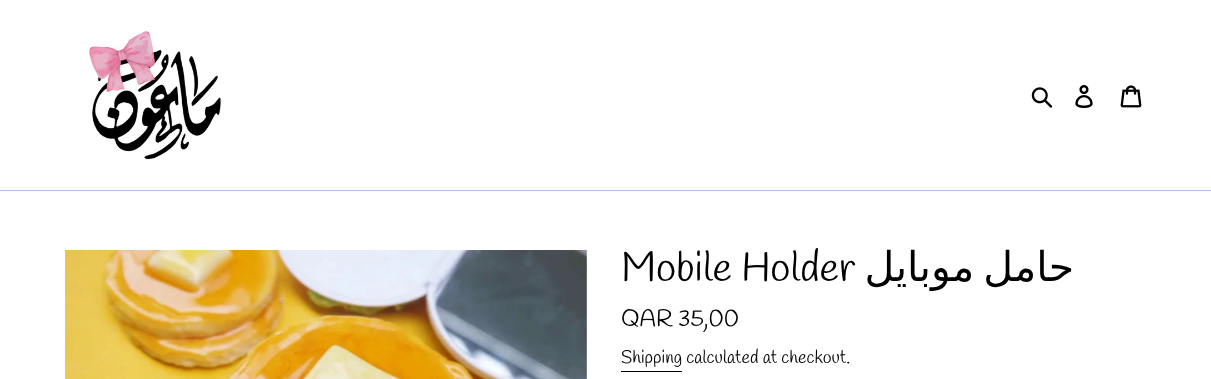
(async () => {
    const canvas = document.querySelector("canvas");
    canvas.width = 1211;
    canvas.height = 379;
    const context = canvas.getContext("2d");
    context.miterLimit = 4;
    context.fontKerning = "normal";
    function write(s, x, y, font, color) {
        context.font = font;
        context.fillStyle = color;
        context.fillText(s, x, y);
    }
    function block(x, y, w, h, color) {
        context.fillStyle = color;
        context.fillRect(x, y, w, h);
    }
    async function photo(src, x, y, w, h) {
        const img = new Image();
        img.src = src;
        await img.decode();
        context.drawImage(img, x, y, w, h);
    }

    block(0, 0, 1211, 379, "rgb(255, 255, 255)");
    block(0, 190, 1211, 1, "rgb(173, 192, 233)");
    await photo("media/1.png", 88, 31, 133, 129);
    await photo("media/2.png", 1031, 87, 22, 21);
    await photo("media/3.png", 1075, 85, 18, 23);
    await photo("media/4.png", 1120, 85, 22, 23);
    await photo("media/5.png", 65, 250, 522, 129);
    write("Mobile Holder", 621, 281, "41px Handlee", "rgb(0, 0, 0)");
    context.wordSpacing = "-4px";
    context.direction = "rtl";
    write("حامل موبايل", 1074, 281, "41px DejaVu Sans", "rgb(0, 0, 0)");
    context.wordSpacing = "0px";
    context.direction = "ltr";
    write("QAR 35,00", 621, 326, "23.75px Handlee", "rgb(0, 0, 0)");
    write("Shipping calculated at checkout.", 621, 363, "18px Handlee", "rgb(0, 0, 0)");
    block(621, 371, 61, 1, "rgb(0, 0, 0)");
})();
